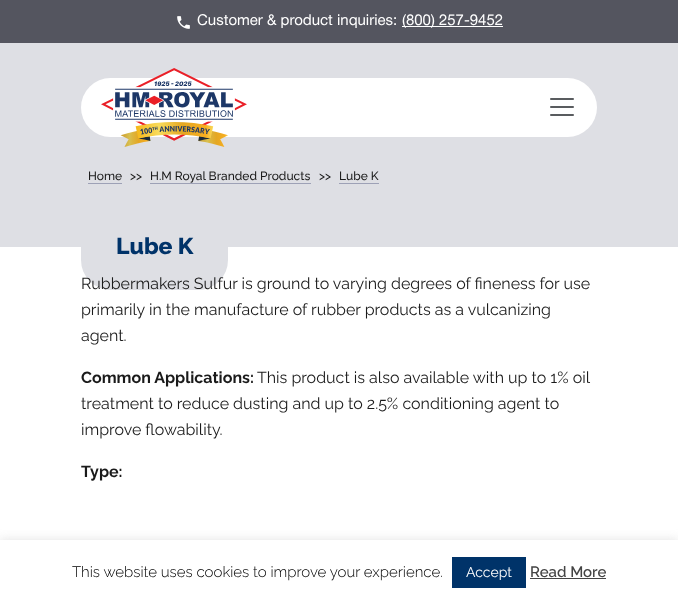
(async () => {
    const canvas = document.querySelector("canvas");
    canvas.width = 678;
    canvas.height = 600;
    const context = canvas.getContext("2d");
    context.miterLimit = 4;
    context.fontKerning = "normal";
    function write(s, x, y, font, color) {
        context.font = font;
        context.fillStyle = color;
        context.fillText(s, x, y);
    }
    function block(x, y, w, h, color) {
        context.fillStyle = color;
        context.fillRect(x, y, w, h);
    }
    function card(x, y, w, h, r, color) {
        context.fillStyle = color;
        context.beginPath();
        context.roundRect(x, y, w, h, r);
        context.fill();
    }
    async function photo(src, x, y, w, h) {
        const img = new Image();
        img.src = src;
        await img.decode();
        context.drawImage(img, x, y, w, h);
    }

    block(0, 0, 678, 600, "rgb(255, 255, 255)");
    block(0, 0, 678, 43, "rgb(84, 85, 95)");
    await photo("media/1.png", 177, 16, 13, 13);
    write("Customer & product inquiries:", 197, 25, "15px Helvetica Neue", "rgb(255, 255, 255)");
    block(402, 26, 101, 1, "rgb(255, 255, 255)");
    write("(800) 257-9452", 402, 25, "15px Helvetica Neue", "rgb(255, 255, 255)");
    block(0, 43, 678, 204, "rgb(222, 223, 228)");
    card(81, 78, 516, 59, 29.5, "rgb(255, 255, 255)");
    await photo("media/2.png", 101, 68, 146, 79);
    await photo("media/3.png", 550, 98, 24, 18);
    write("Home", 88, 180, "500 12px Raleway", "rgb(26, 26, 26)");
    block(88, 183, 34, 1, "rgb(157, 161, 182)");
    write(">>", 130, 180, "500 12px Raleway", "rgb(26, 26, 26)");
    write("H.M Royal Branded Products", 150, 180, "500 12px Raleway", "rgb(26, 26, 26)");
    block(150, 183, 161, 1, "rgb(157, 161, 182)");
    write(">>", 319, 180, "500 12px Raleway", "rgb(26, 26, 26)");
    write("Lube K", 339, 180, "500 12px Raleway", "rgb(26, 26, 26)");
    block(339, 183, 40, 1, "rgb(157, 161, 182)");
    context.fillStyle = "rgb(222, 223, 228)";
    context.beginPath();
    context.roundRect(81, 227, 147, 63, [0, 0, 30, 30]);
    context.fill();
    write("Lube K", 116, 254, "800 23px Raleway", "rgb(0, 51, 105)");
    write("Rubbermakers Sulfur is ground to varying degrees of fineness for use", 81, 289, "16px Raleway", "rgb(26, 26, 26)");
    write("primarily in the manufacture of rubber products as a vulcanizing", 81, 315, "16px Raleway", "rgb(26, 26, 26)");
    write("agent.", 81, 341, "16px Raleway", "rgb(26, 26, 26)");
    write("Common Applications:", 81, 383, "bold 16px Raleway", "rgb(26, 26, 26)");
    write("This product is also available with up to 1% oil", 257, 383, "16px Raleway", "rgb(26, 26, 26)");
    write("treatment to reduce dusting and up to 2.5% conditioning agent to", 81, 409, "16px Raleway", "rgb(26, 26, 26)");
    write("improve flowability.", 81, 435, "16px Raleway", "rgb(26, 26, 26)");
    write("Type:", 81, 477, "bold 16px Raleway", "rgb(26, 26, 26)");
    context.fillStyle = "rgba(172, 171, 171, 0.3)";
    context.filter = "blur(5px)";
    context.beginPath();
    context.rect(0, 539, 678, 60);
    context.fill();
    context.filter = "none";
    block(0, 540, 678, 60, "rgb(255, 255, 255)");
    write("This website uses cookies to improve your experience.", 72, 577, "300 15px Raleway", "rgb(0, 0, 0)");
    block(452, 557, 74, 31, "rgb(0, 51, 105)");
    write("Accept", 466, 577, "14px Raleway", "rgb(255, 255, 255)");
    write("Read More", 530, 577, "500 15px 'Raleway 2'", "rgb(68, 68, 68)");
    block(530, 578, 76, 1, "rgb(68, 68, 68)");
})();
